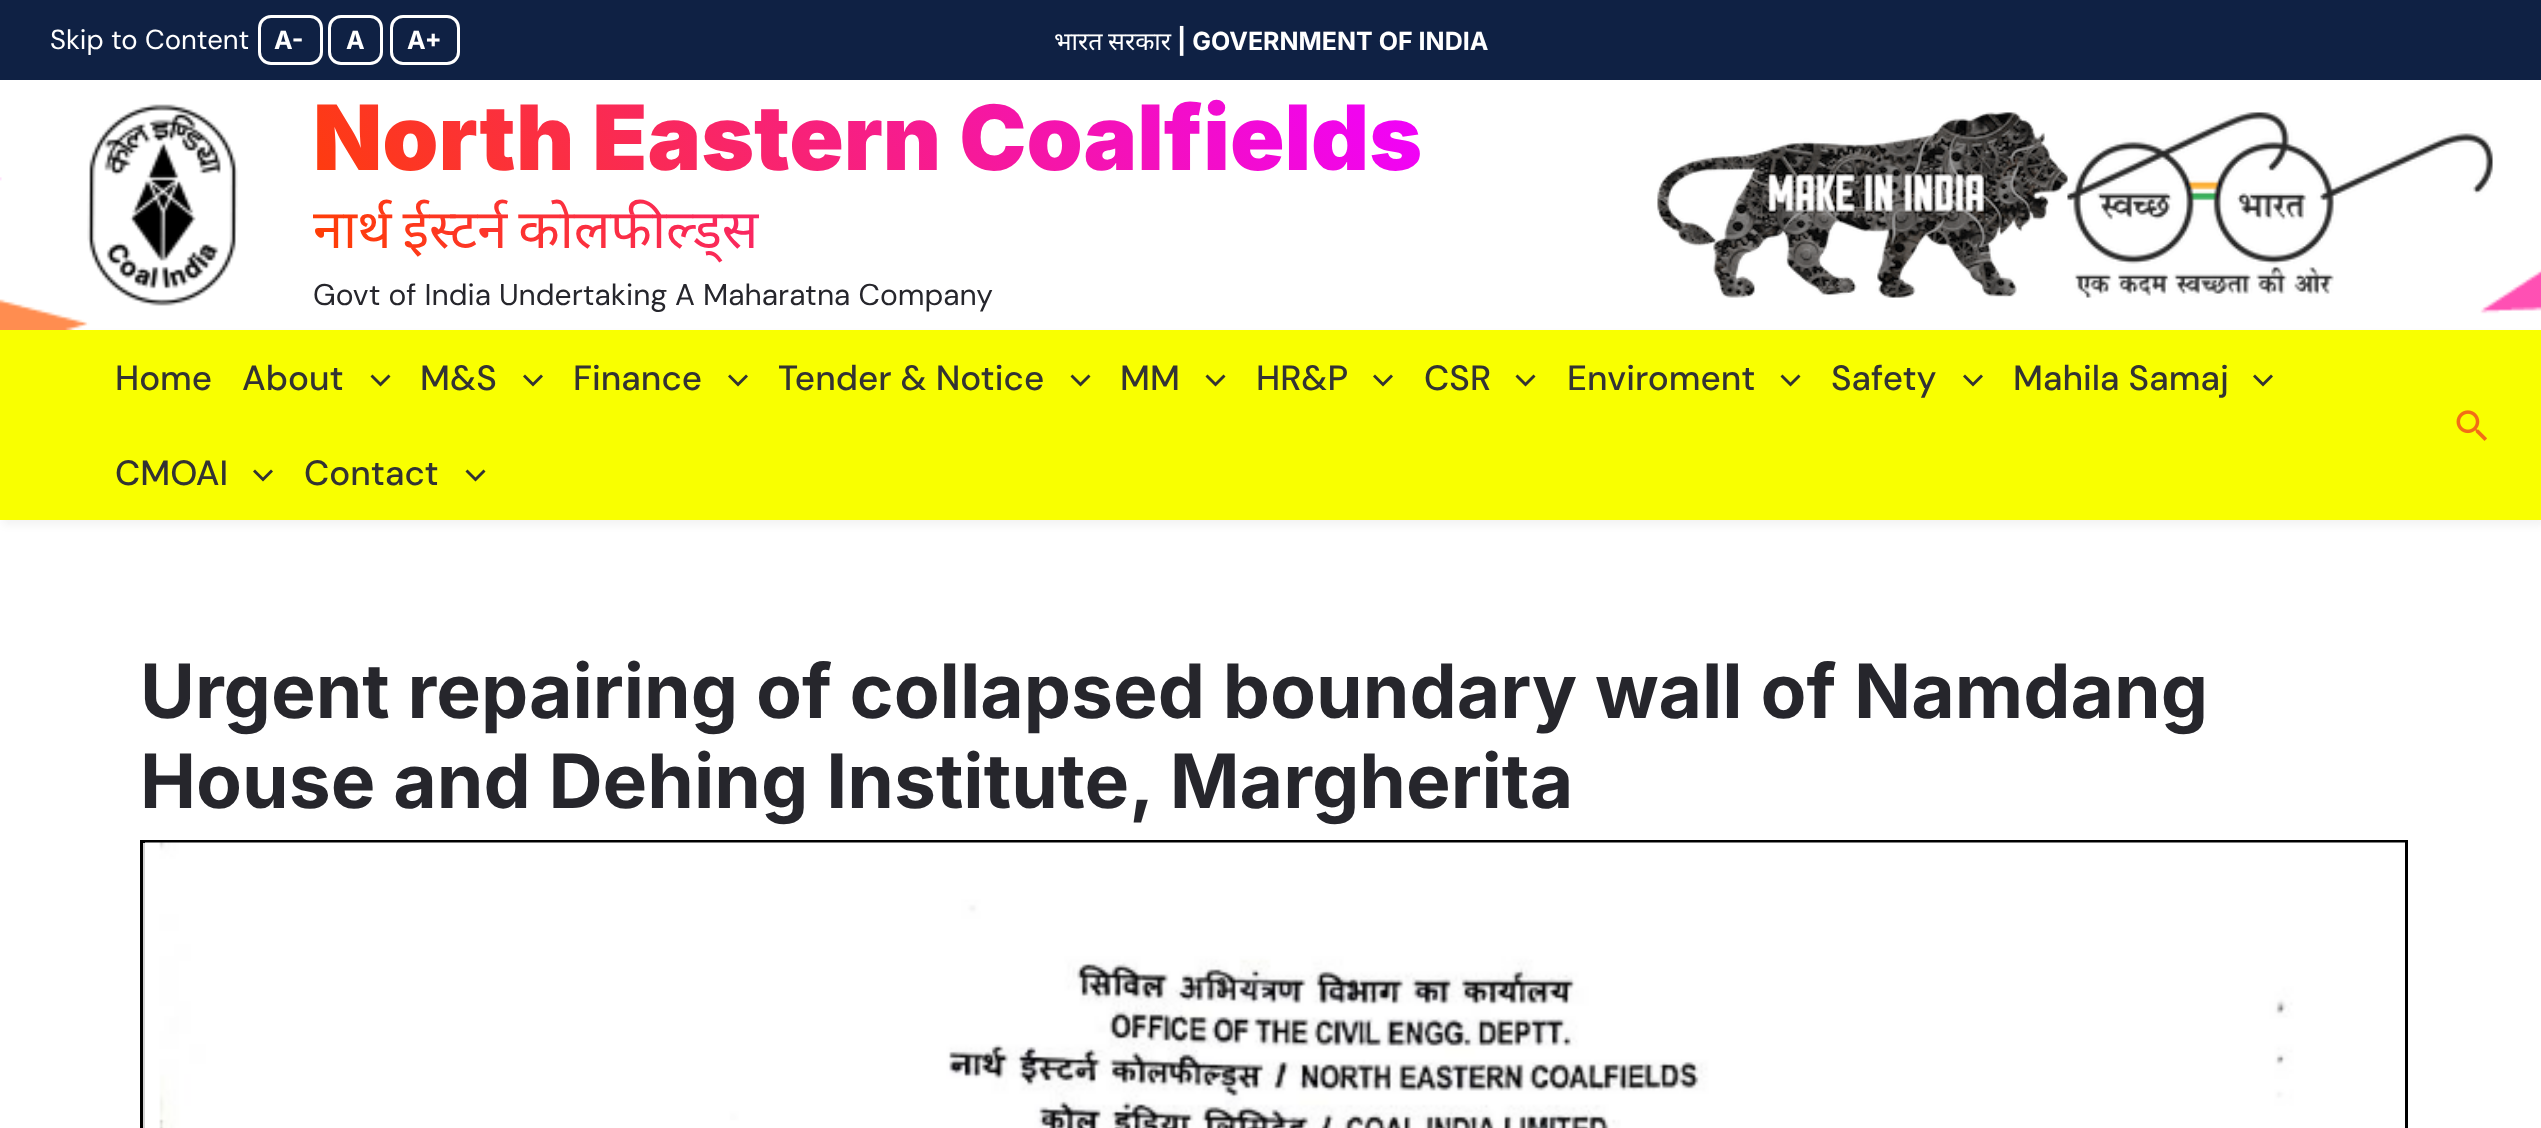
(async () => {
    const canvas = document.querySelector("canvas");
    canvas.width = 2541;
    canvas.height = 1128;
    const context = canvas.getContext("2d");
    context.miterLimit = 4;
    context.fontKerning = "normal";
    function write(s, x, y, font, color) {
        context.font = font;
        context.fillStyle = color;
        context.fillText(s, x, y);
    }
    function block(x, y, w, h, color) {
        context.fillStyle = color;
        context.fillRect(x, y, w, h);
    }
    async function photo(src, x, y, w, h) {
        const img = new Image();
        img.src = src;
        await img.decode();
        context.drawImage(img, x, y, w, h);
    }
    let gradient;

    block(0, 0, 2541, 1128, "rgb(255, 255, 255)");
    block(0, 0, 2541, 80, "rgb(15, 33, 68)");
    write("Skip to Content", 50, 49, "27.5px DM Sans", "rgb(255, 255, 255)");
    context.beginPath();
    context.roundRect(259.5, 16.5, 62, 47, 11.5);
    context.strokeStyle = "rgb(255, 255, 255)";
    context.lineWidth = 3;
    context.stroke();
    write("A-", 274, 49, "bold 25px Inter", "rgb(255, 255, 255)");
    context.beginPath();
    context.roundRect(329.5, 16.5, 52, 47, 11.5);
    context.stroke();
    write("A", 346, 49, "bold 25px Inter", "rgb(255, 255, 255)");
    context.beginPath();
    context.roundRect(391.5, 16.5, 67, 47, 11.5);
    context.stroke();
    write("A+", 407, 49, "bold 25px Inter", "rgb(255, 255, 255)");
    write("भारत", 1054, 50, "25px Noto Sans", "rgb(255, 255, 255)");
    write("सरकार", 1108, 50, "25px Noto Sans", "rgb(255, 255, 255)");
    write("| GOVERNMENT OF INDIA", 1177, 50, "bold 25px Inter", "rgb(255, 255, 255)");
    context.fillStyle = "rgba(0, 0, 0, 0.05)";
    context.filter = "blur(4px)";
    context.beginPath();
    context.rect(3, 335, 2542, 190);
    context.fill();
    context.filter = "none";
    await photo("media/1.png", 0, 177, 2541, 153);
    await photo("media/2.png", 87, 104, 151, 202);
    context.font = "900 90px Inter";
    gradient = context.createLinearGradient(444, 468, 1290, -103);
    gradient.addColorStop(0, "rgb(255, 63, 0)");
    gradient.addColorStop(1, "rgb(240, 0, 255)");
    context.fillStyle = gradient;
    context.fillText("North Eastern Coalfields", 313, 170);
    context.wordSpacing = "-3px";
    context.font = "54px Noto Sans";
    context.fillText("नार्थ ईस्टर्न कोलफील्ड्स", 313, 248);
    context.wordSpacing = "0px";
    write("Govt of India Undertaking A Maharatna Company", 313, 305, "30px DM Sans", "rgb(38, 38, 44)");
    await photo("media/3.png", 1657, 112, 411, 186);
    await photo("media/4.png", 2067, 112, 426, 186);
    block(0, 330, 2541, 190, "rgb(249, 255, 0)");
    write("Home", 115, 390, "500 35px DM Sans", "rgb(51, 51, 51)");
    write("About", 242, 390, "500 35px DM Sans", "rgb(51, 51, 51)");
    context.beginPath();
    context.moveTo(370.5, 376.5);
    context.lineTo(380.5, 386.5);
    context.lineTo(390.5, 376.5);
    context.lineTo(388.5, 374.5);
    context.lineTo(380.5, 382.5);
    context.lineTo(372.5, 374.5);
    context.closePath();
    context.fill();
    write("M&S", 420, 390, "500 35px DM Sans", "rgb(51, 51, 51)");
    context.beginPath();
    context.moveTo(523, 376.5);
    context.lineTo(533, 386.5);
    context.lineTo(543, 376.5);
    context.lineTo(541, 374.5);
    context.lineTo(533, 382.5);
    context.lineTo(525, 374.5);
    context.closePath();
    context.fill();
    write("Finance", 573, 390, "500 35px DM Sans", "rgb(51, 51, 51)");
    context.beginPath();
    context.moveTo(728, 376.5);
    context.lineTo(738, 386.5);
    context.lineTo(748, 376.5);
    context.lineTo(746, 374.5);
    context.lineTo(738, 382.5);
    context.lineTo(730, 374.5);
    context.closePath();
    context.fill();
    write("Tender & Notice", 778, 390, "500 35px DM Sans", "rgb(51, 51, 51)");
    context.beginPath();
    context.moveTo(1070.5, 376.5);
    context.lineTo(1080.5, 386.5);
    context.lineTo(1090.5, 376.5);
    context.lineTo(1088.5, 374.5);
    context.lineTo(1080.5, 382.5);
    context.lineTo(1072.5, 374.5);
    context.closePath();
    context.fill();
    write("MM", 1120, 390, "500 35px DM Sans", "rgb(51, 51, 51)");
    context.beginPath();
    context.moveTo(1205.5, 376.5);
    context.lineTo(1215.5, 386.5);
    context.lineTo(1225.5, 376.5);
    context.lineTo(1223.5, 374.5);
    context.lineTo(1215.5, 382.5);
    context.lineTo(1207.5, 374.5);
    context.closePath();
    context.fill();
    write("HR&P", 1256, 390, "500 35px DM Sans", "rgb(51, 51, 51)");
    context.beginPath();
    context.moveTo(1373, 376.5);
    context.lineTo(1383, 386.5);
    context.lineTo(1393, 376.5);
    context.lineTo(1391, 374.5);
    context.lineTo(1383, 382.5);
    context.lineTo(1375, 374.5);
    context.closePath();
    context.fill();
    write("CSR", 1424, 390, "500 35px DM Sans", "rgb(51, 51, 51)");
    context.beginPath();
    context.moveTo(1515.5, 376.5);
    context.lineTo(1525.5, 386.5);
    context.lineTo(1535.5, 376.5);
    context.lineTo(1533.5, 374.5);
    context.lineTo(1525.5, 382.5);
    context.lineTo(1517.5, 374.5);
    context.closePath();
    context.fill();
    write("Enviroment", 1567, 390, "500 35px DM Sans", "rgb(51, 51, 51)");
    context.beginPath();
    context.moveTo(1780.5, 376.5);
    context.lineTo(1790.5, 386.5);
    context.lineTo(1800.5, 376.5);
    context.lineTo(1798.5, 374.5);
    context.lineTo(1790.5, 382.5);
    context.lineTo(1782.5, 374.5);
    context.closePath();
    context.fill();
    write("Safety", 1831, 390, "500 35px DM Sans", "rgb(51, 51, 51)");
    context.beginPath();
    context.moveTo(1963, 376.5);
    context.lineTo(1973, 386.5);
    context.lineTo(1983, 376.5);
    context.lineTo(1981, 374.5);
    context.lineTo(1973, 382.5);
    context.lineTo(1965, 374.5);
    context.closePath();
    context.fill();
    write("Mahila Samaj", 2013, 390, "500 35px DM Sans", "rgb(51, 51, 51)");
    context.beginPath();
    context.moveTo(2253, 376.5);
    context.lineTo(2263, 386.5);
    context.lineTo(2273, 376.5);
    context.lineTo(2271, 374.5);
    context.lineTo(2263, 382.5);
    context.lineTo(2255, 374.5);
    context.closePath();
    context.fill();
    write("CMOAI", 115, 485, "500 35px DM Sans", "rgb(51, 51, 51)");
    context.beginPath();
    context.moveTo(253, 471.5);
    context.lineTo(263, 481.5);
    context.lineTo(273, 471.5);
    context.lineTo(271, 469.5);
    context.lineTo(263, 477.5);
    context.lineTo(255, 469.5);
    context.closePath();
    context.fill();
    write("Contact", 304, 485, "500 35px DM Sans", "rgb(51, 51, 51)");
    context.beginPath();
    context.moveTo(465.5, 471.5);
    context.lineTo(475.5, 481.5);
    context.lineTo(485.5, 471.5);
    context.lineTo(483.5, 469.5);
    context.lineTo(475.5, 477.5);
    context.lineTo(467.5, 469.5);
    context.closePath();
    context.fill();
    await photo("media/5.png", 2456, 410, 31, 31);
    write("Urgent repairing of collapsed boundary wall of Namdang", 140, 718, "bold 75px Inter", "rgb(38, 38, 44)");
    write("House and Dehing Institute, Margherita", 140, 808, "bold 75px Inter", "rgb(38, 38, 44)");
    block(143, 843, 2, 285, "rgb(211, 211, 211)");
    context.strokeStyle = "rgb(0, 0, 0)";
    context.strokeRect(141.5, 841.5, 2265, 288);
    await photo("media/6.png", 145, 842, 2260, 286);
})();
